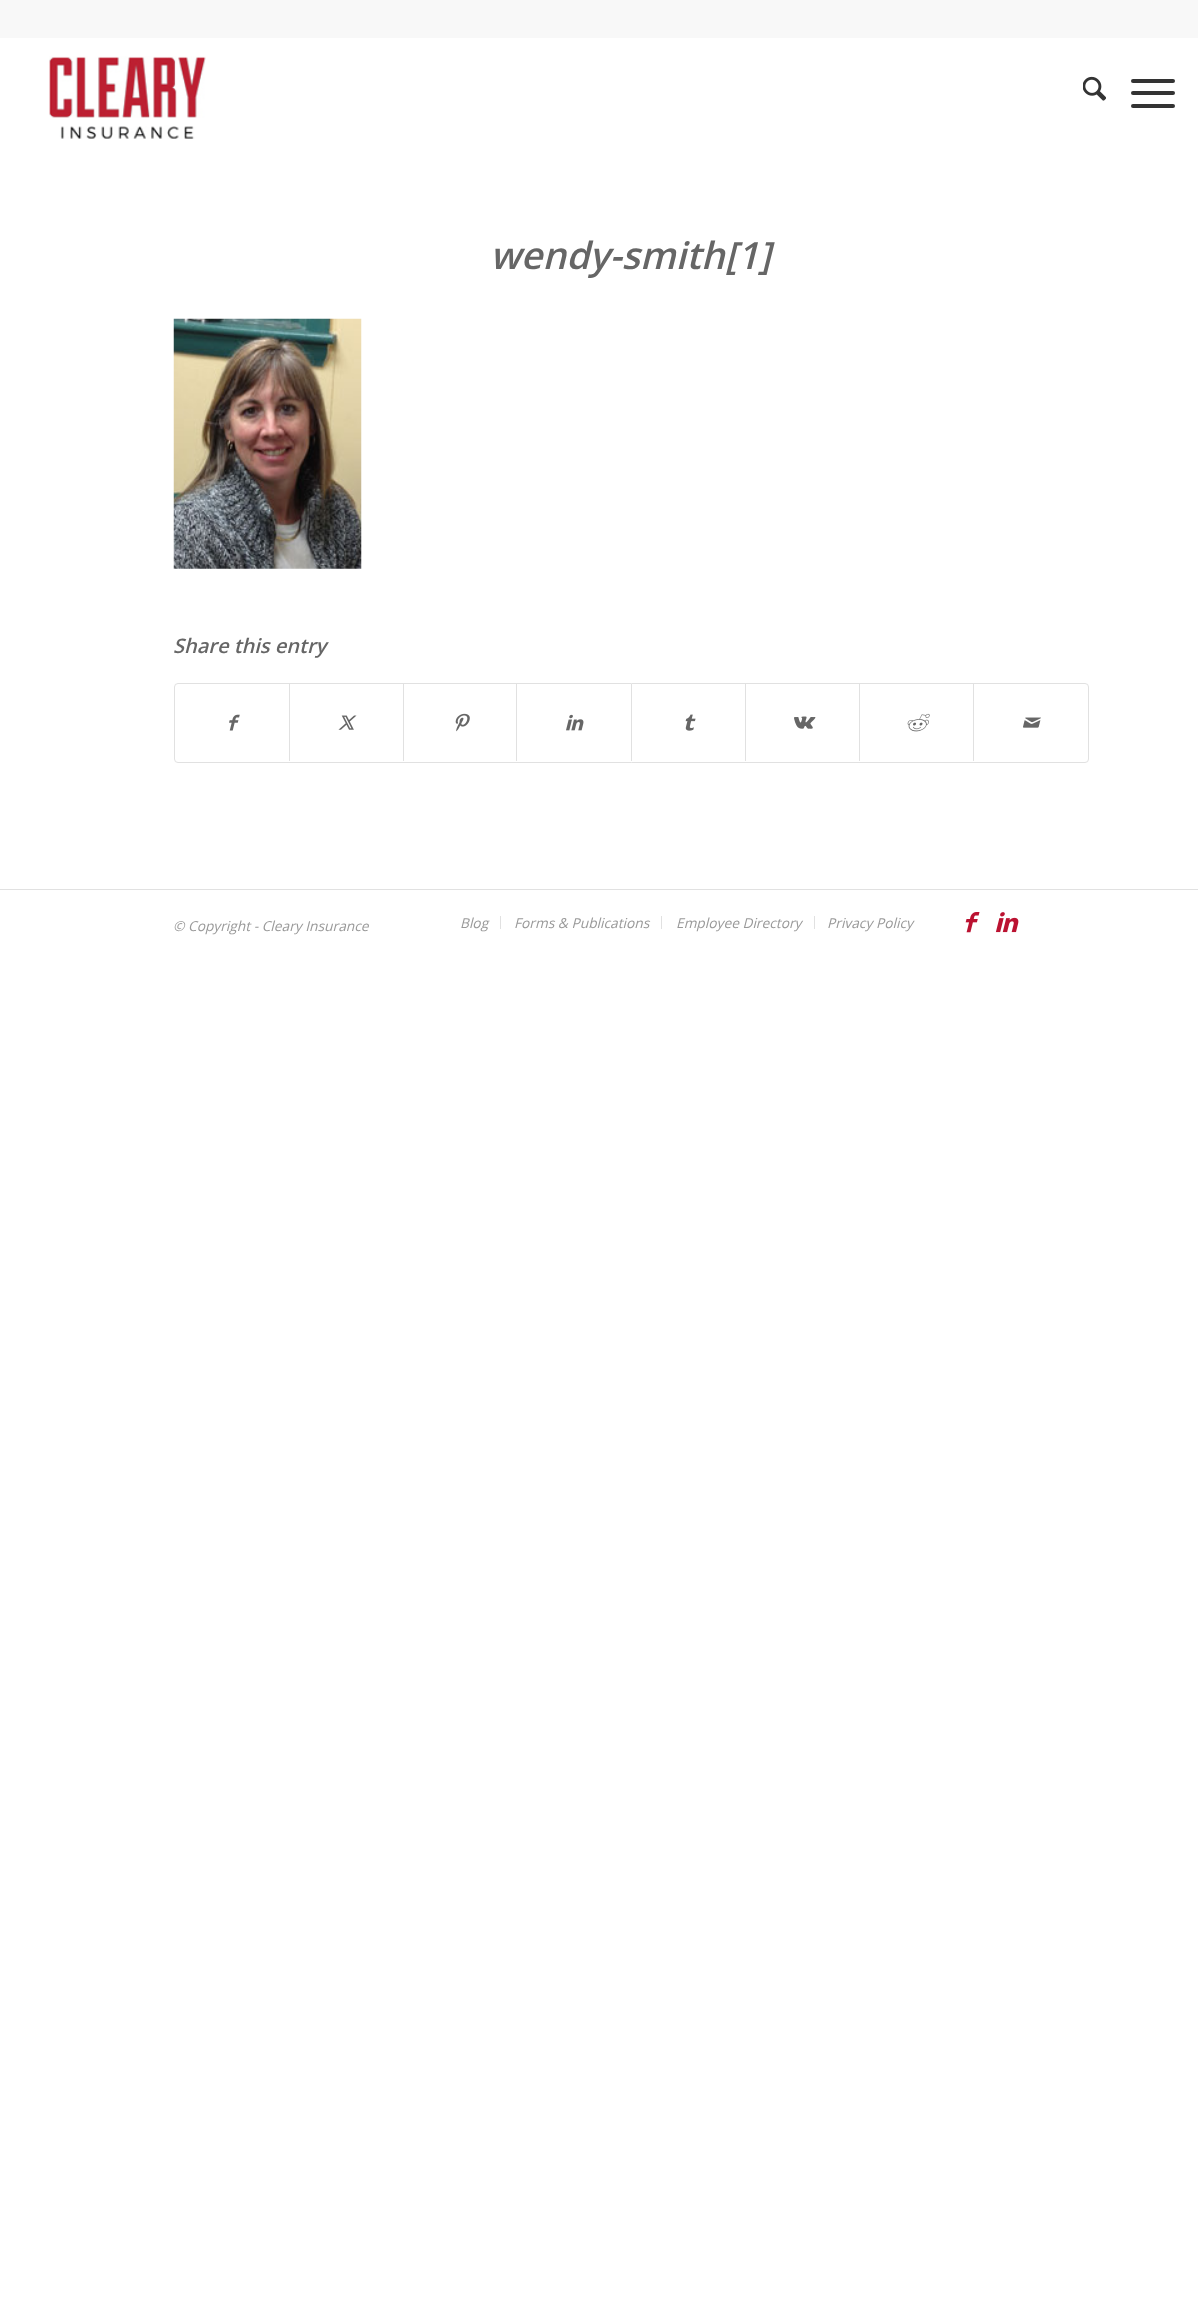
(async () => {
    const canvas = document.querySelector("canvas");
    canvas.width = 1198;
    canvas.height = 2304;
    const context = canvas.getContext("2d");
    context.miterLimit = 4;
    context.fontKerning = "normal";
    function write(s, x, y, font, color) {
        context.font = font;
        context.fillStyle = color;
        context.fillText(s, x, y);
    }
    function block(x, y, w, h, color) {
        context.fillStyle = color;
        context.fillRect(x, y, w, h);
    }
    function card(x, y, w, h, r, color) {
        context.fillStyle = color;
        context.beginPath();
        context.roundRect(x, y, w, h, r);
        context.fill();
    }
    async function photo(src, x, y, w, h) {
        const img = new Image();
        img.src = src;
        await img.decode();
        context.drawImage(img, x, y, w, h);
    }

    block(0, 0, 1198, 2304, "rgb(255, 255, 255)");
    block(0, 0, 1198, 38, "rgb(248, 248, 248)");
    await photo("media/1.png", 49, 56, 157, 83);
    await photo("media/2.png", 1083, 76, 23, 25);
    card(1131, 91, 44, 4, 2, "rgb(51, 51, 51)");
    card(1131, 79, 44, 4, 2, "rgb(51, 51, 51)");
    card(1131, 104, 44, 4, 2, "rgb(51, 51, 51)");
    write("wendy-smith[1]", 490, 269, "italic 600 37.5px Open Sans", "rgb(102, 102, 102)");
    await photo("media/3.png", 173, 318, 189, 251);
    write("Share this entry", 173, 653, "italic 600 20px Open Sans", "rgb(102, 102, 102)");
    context.beginPath();
    context.roundRect(174.5, 683.5, 914, 79, 3.5);
    context.strokeStyle = "rgb(225, 225, 225)";
    context.stroke();
    await photo("media/4.png", 229, 714, 11, 17);
    block(289, 684, 1, 77, "rgb(225, 225, 225)");
    await photo("media/5.png", 338, 715, 19, 15);
    block(403, 684, 1, 77, "rgb(225, 225, 225)");
    await photo("media/6.png", 455, 713, 15, 19);
    block(516, 684, 1, 77, "rgb(225, 225, 225)");
    await photo("media/7.png", 566, 714, 18, 17);
    block(631, 684, 1, 77, "rgb(225, 225, 225)");
    await photo("media/8.png", 685, 714, 11, 17);
    block(745, 684, 1, 77, "rgb(225, 225, 225)");
    await photo("media/9.png", 794, 716, 22, 13);
    block(859, 684, 1, 77, "rgb(225, 225, 225)");
    await photo("media/10.png", 907, 713, 23, 19);
    block(973, 684, 1, 77, "rgb(225, 225, 225)");
    await photo("media/11.png", 1023, 717, 18, 11);
    block(0, 889, 1198, 1, "rgb(225, 225, 225)");
    write("© Copyright - Cleary Insurance", 173, 931, "italic 13.75px Open Sans", "rgb(153, 153, 153)");
    write("Blog", 460, 928, "italic 13.75px Open Sans", "rgb(153, 153, 153)");
    block(500, 916, 1, 13, "rgb(225, 225, 225)");
    write("Forms & Publications", 514, 928, "italic 13.75px Open Sans", "rgb(153, 153, 153)");
    block(661, 916, 1, 13, "rgb(225, 225, 225)");
    write("Employee Directory", 676, 928, "italic 13.75px Open Sans", "rgb(153, 153, 153)");
    block(814, 916, 1, 13, "rgb(225, 225, 225)");
    write("Privacy Policy", 827, 928, "italic 13.75px Open Sans", "rgb(153, 153, 153)");
    await photo("media/12.png", 965, 912, 15, 21);
    await photo("media/13.png", 995, 912, 24, 21);
})();
